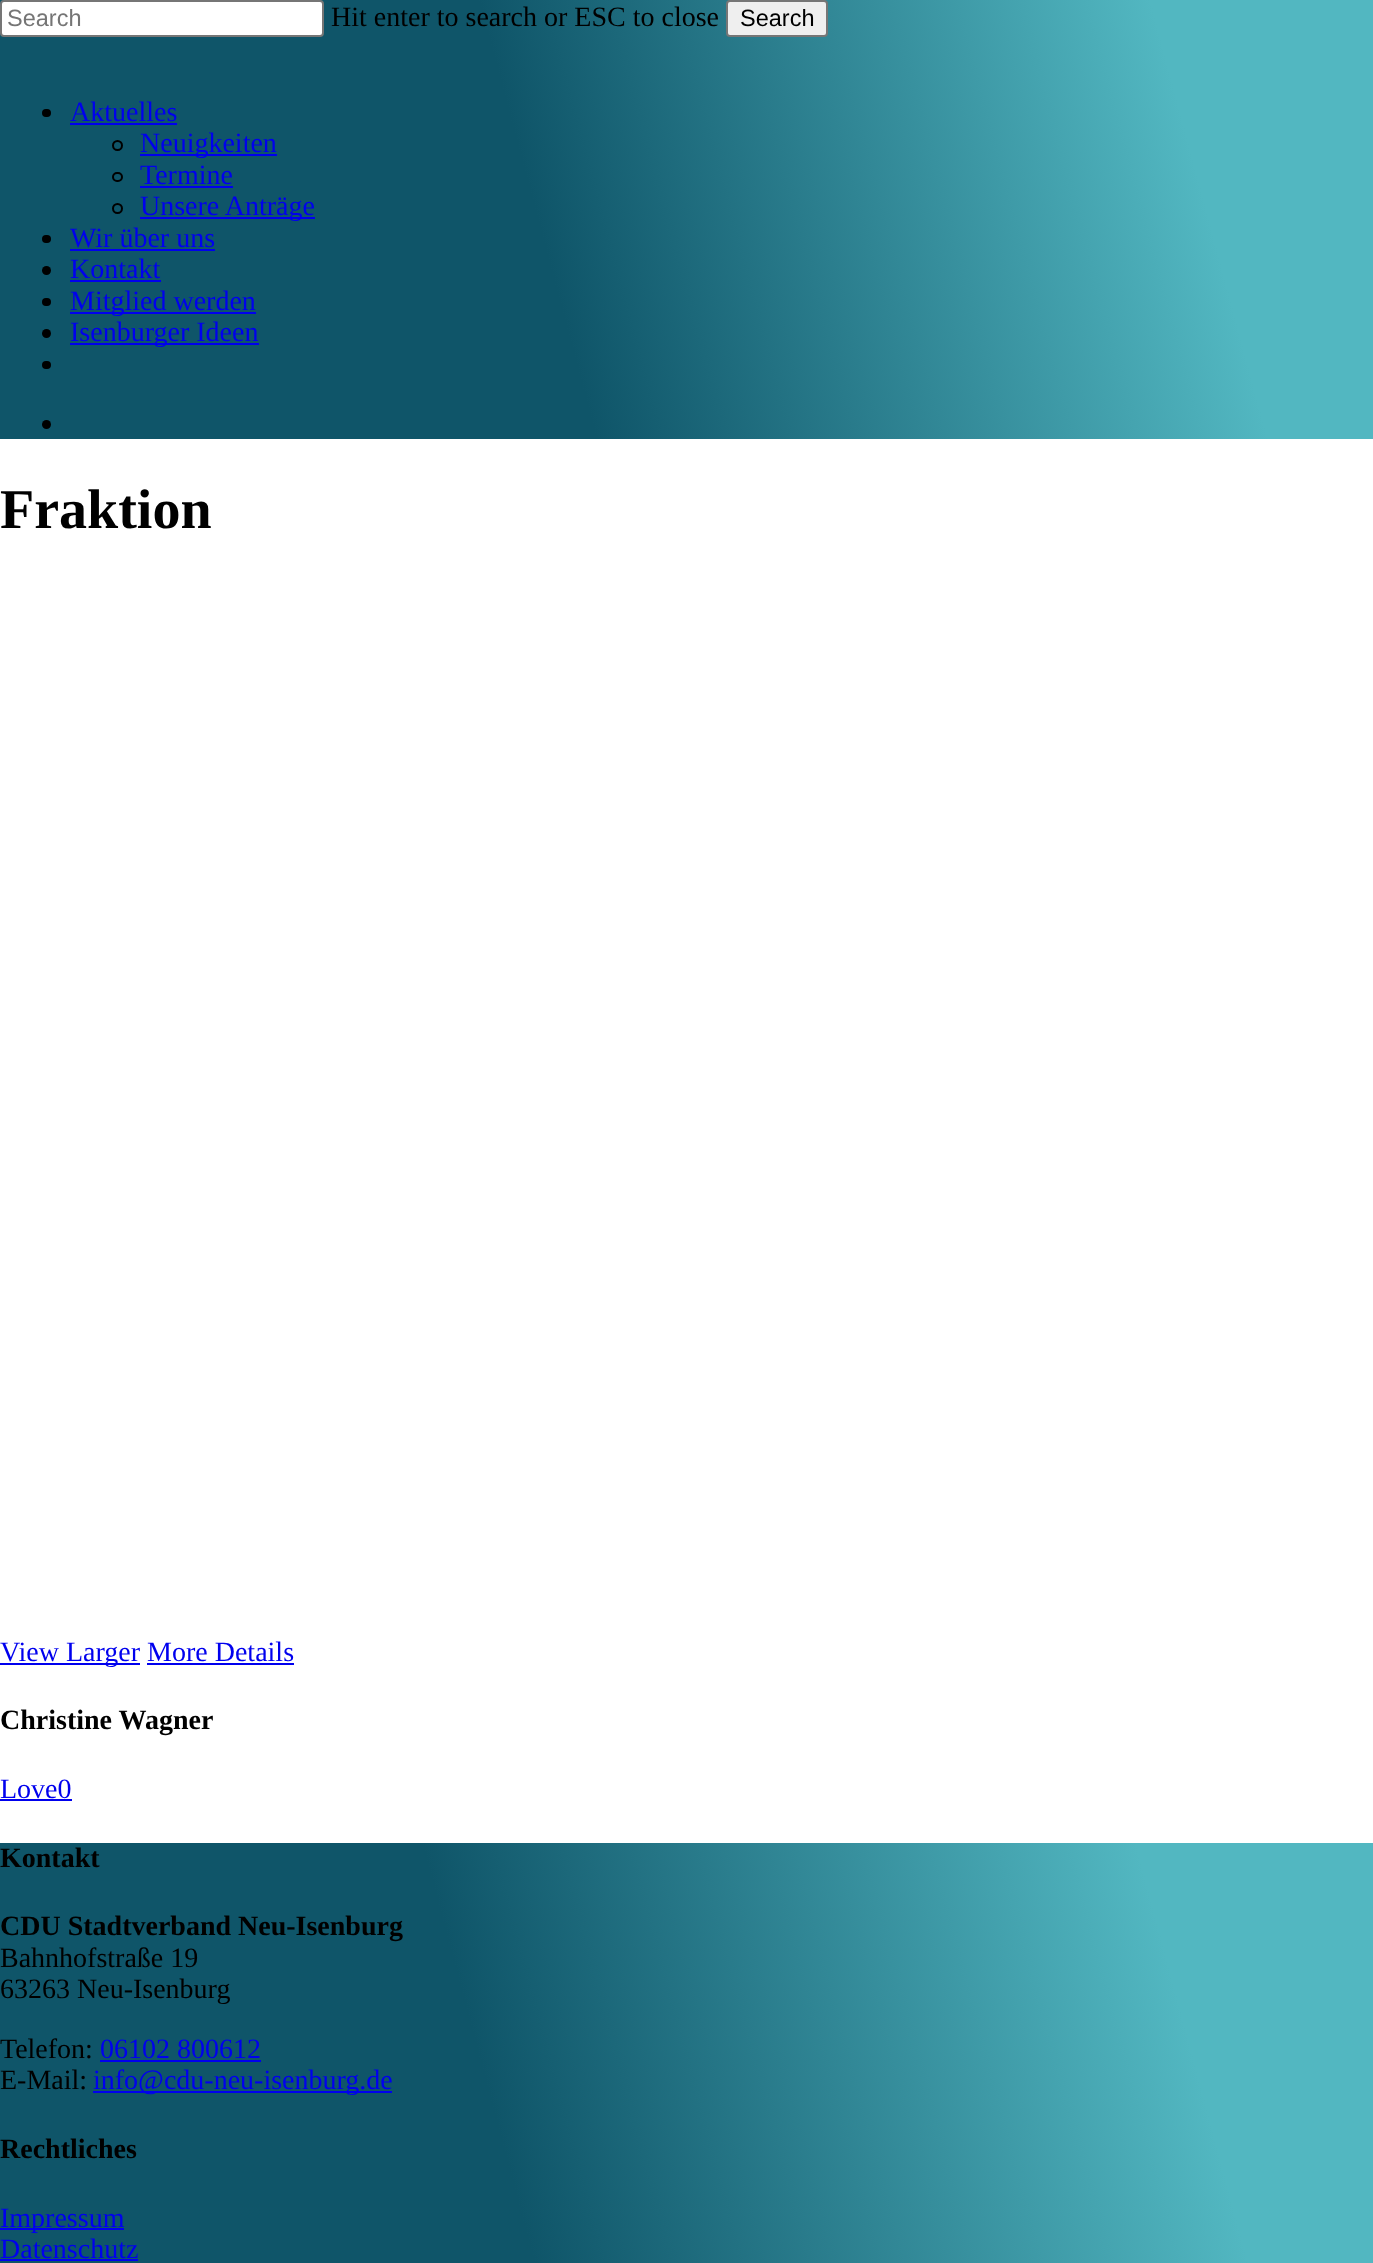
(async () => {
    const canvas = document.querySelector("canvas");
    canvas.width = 1373;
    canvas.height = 2263;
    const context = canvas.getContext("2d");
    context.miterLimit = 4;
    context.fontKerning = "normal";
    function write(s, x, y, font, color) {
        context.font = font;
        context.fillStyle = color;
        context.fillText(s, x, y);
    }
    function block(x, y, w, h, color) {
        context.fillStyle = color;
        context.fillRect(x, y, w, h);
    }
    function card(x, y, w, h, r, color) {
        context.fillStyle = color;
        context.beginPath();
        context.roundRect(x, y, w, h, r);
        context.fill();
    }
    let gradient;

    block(0, 0, 1373, 2263, "rgb(255, 255, 255)");
    gradient = context.createLinearGradient(-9, 406, 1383, 33);
    gradient.addColorStop(0, "rgb(15, 85, 105)");
    gradient.addColorStop(0.4, "rgb(15, 85, 105)");
    gradient.addColorStop(0.85, "rgb(82, 183, 193)");
    gradient.addColorStop(1, "rgb(82, 183, 193)");
    context.fillStyle = gradient;
    context.fillRect(0, 0, 1373, 439);
    context.fillStyle = "rgb(255, 255, 255)";
    context.beginPath();
    context.roundRect(1, 1, 322, 35, 3);
    context.fill();
    context.strokeStyle = "rgb(118, 118, 118)";
    context.lineWidth = 2;
    context.stroke();
    write("Search", 7, 26, "23.5px Liberation Sans", "rgb(117, 117, 117)");
    write("Hit enter to search or ESC to close", 331, 26, "28px Liberation Serif", "rgb(0, 0, 0)");
    context.fillStyle = "rgb(239, 239, 239)";
    context.beginPath();
    context.roundRect(727, 1, 100, 35, 3);
    context.fill();
    context.stroke();
    write("Search", 740, 26, "23.5px Liberation Sans", "rgb(0, 0, 0)");
    card(42, 109, 9, 8, 4, "rgb(0, 0, 0)");
    write("Aktuelles", 70, 121, "28px Liberation Serif", "rgb(0, 0, 238)");
    block(70, 123, 107, 2, "rgb(0, 0, 238)");
    context.beginPath();
    context.arc(117.5, 145.5, 4.5, 0, Math.PI * 2);
    context.strokeStyle = "rgb(0, 0, 0)";
    context.stroke();
    block(140, 154, 137, 2, "rgb(0, 0, 238)");
    write("Neuigkeiten", 140, 152, "28px Liberation Serif", "rgb(0, 0, 238)");
    context.beginPath();
    context.roundRect(113, 173, 9, 8, 4);
    context.stroke();
    write("Termine", 140, 184, "28px Liberation Serif", "rgb(0, 0, 238)");
    block(140, 186, 93, 2, "rgb(0, 0, 238)");
    context.beginPath();
    context.arc(117.5, 208.5, 4.5, 0, Math.PI * 2);
    context.stroke();
    block(140, 217, 175, 2, "rgb(0, 0, 238)");
    write("Unsere Anträge", 140, 215, "28px Liberation Serif", "rgb(0, 0, 238)");
    card(42, 235, 9, 8, 4, "rgb(0, 0, 0)");
    write("Wir über uns", 70, 247, "28px Liberation Serif", "rgb(0, 0, 238)");
    block(70, 249, 145, 2, "rgb(0, 0, 238)");
    context.fillStyle = "rgb(0, 0, 0)";
    context.beginPath();
    context.arc(46.5, 270.5, 4.5, 0, Math.PI * 2);
    context.fill();
    write("Kontakt", 70, 278, "28px Liberation Serif", "rgb(0, 0, 238)");
    block(70, 280, 91, 2, "rgb(0, 0, 238)");
    card(42, 298, 9, 8, 4, "rgb(0, 0, 0)");
    block(70, 312, 186, 2, "rgb(0, 0, 238)");
    write("Mitglied werden", 70, 310, "28px Liberation Serif", "rgb(0, 0, 238)");
    context.fillStyle = "rgb(0, 0, 0)";
    context.beginPath();
    context.arc(46.5, 333.5, 4.5, 0, Math.PI * 2);
    context.fill();
    block(70, 343, 189, 2, "rgb(0, 0, 238)");
    write("Isenburger Ideen", 70, 341, "28px Liberation Serif", "rgb(0, 0, 238)");
    card(42, 361, 9, 8, 4, "rgb(0, 0, 0)");
    context.beginPath();
    context.arc(46.5, 424.5, 4.5, 0, Math.PI * 2);
    context.fill();
    write("Fraktion", 0, 528, "bold 56px Liberation Serif", "rgb(0, 0, 0)");
    block(0, 1663, 140, 2, "rgb(0, 0, 238)");
    write("View Larger More Details", 0, 1661, "28px Liberation Serif", "rgb(0, 0, 238)");
    block(147, 1663, 147, 2, "rgb(0, 0, 238)");
    write("Christine Wagner", 0, 1729, "bold 28px Liberation Serif", "rgb(0, 0, 0)");
    write("Love0", 0, 1798, "28px Liberation Serif", "rgb(0, 0, 238)");
    block(0, 1799, 72, 2, "rgb(0, 0, 238)");
    gradient = context.createLinearGradient(-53, 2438, 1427, 2042);
    gradient.addColorStop(0, "rgb(15, 85, 105)");
    gradient.addColorStop(0.4, "rgb(15, 85, 105)");
    gradient.addColorStop(0.85, "rgb(82, 183, 193)");
    gradient.addColorStop(1, "rgb(82, 183, 193)");
    context.fillStyle = gradient;
    context.fillRect(0, 1843, 1373, 420);
    write("Kontakt", 0, 1867, "bold 28px Liberation Serif", "rgb(0, 0, 0)");
    write("CDU Stadtverband Neu-Isenburg", 0, 1935, "bold 28px Liberation Serif", "rgb(0, 0, 0)");
    write("Bahnhofstraße 19", 0, 1967, "28px Liberation Serif", "rgb(0, 0, 0)");
    write("63263 Neu-Isenburg", 0, 1998, "28px Liberation Serif", "rgb(0, 0, 0)");
    write("Telefon:", 0, 2058, "28px Liberation Serif", "rgb(0, 0, 0)");
    write("06102 800612", 100, 2058, "28px Liberation Serif", "rgb(0, 0, 238)");
    block(100, 2060, 161, 2, "rgb(0, 0, 238)");
    write("E-Mail:", 0, 2089, "28px Liberation Serif", "rgb(0, 0, 0)");
    block(93, 2091, 299, 2, "rgb(0, 0, 238)");
    write("info@cdu-neu-isenburg.de", 93, 2089, "28px Liberation Serif", "rgb(0, 0, 238)");
    write("Rechtliches", 0, 2158, "bold 28px Liberation Serif", "rgb(0, 0, 0)");
    block(0, 2228, 124, 2, "rgb(0, 0, 238)");
    write("Impressum", 0, 2227, "28px Liberation Serif", "rgb(0, 0, 238)");
    write("Datenschutz", 0, 2258, "28px Liberation Serif", "rgb(0, 0, 238)");
    block(0, 2259, 138, 2, "rgb(0, 0, 238)");
})();
